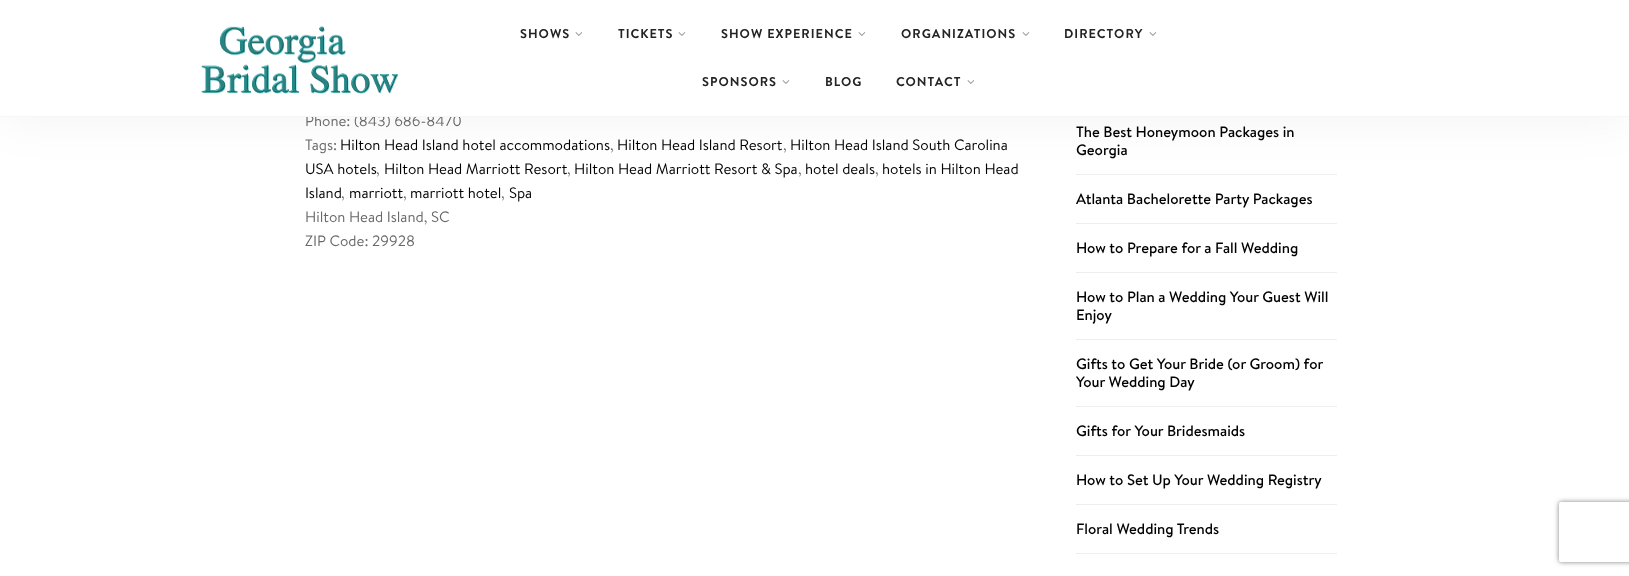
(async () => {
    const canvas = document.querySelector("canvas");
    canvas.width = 1629;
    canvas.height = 576;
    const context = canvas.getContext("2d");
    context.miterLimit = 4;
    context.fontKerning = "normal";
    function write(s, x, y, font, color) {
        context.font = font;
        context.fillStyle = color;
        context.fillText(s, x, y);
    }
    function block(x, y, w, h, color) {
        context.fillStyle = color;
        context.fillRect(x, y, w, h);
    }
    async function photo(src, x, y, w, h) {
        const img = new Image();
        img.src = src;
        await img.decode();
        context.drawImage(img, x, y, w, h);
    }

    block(0, 0, 1629, 576, "rgb(255, 255, 255)");
    block(1076, 174, 261, 1, "rgb(236, 238, 239)");
    context.fillStyle = "rgba(0, 0, 0, 0.05)";
    context.filter = "blur(25px)";
    context.beginPath();
    context.rect(0, 0, 1629, 117);
    context.fill();
    context.filter = "none";
    write("Phone: (843) 686-8470", 305, 126, "15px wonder", "rgb(105, 105, 105)");
    block(0, 0, 1629, 116, "rgb(255, 255, 255)");
    block(0, 116, 1629, 1, "rgb(245, 246, 247)");
    await photo("media/1.png", 201, 26, 198, 68);
    context.letterSpacing = "1px";
    write("SHOWS", 520, 38, "12.75px 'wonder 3'", "rgb(35, 35, 35)");
    await photo("media/2.png", 575, 32, 8, 4);
    write("TICKETS", 618, 38, "12.75px 'wonder 3'", "rgb(35, 35, 35)");
    await photo("media/2.png", 678, 32, 8, 4);
    write("SHOW EXPERIENCE", 721, 38, "12.75px 'wonder 3'", "rgb(35, 35, 35)");
    await photo("media/2.png", 858, 32, 8, 4);
    write("ORGANIZATIONS", 901, 38, "12.75px 'wonder 3'", "rgb(35, 35, 35)");
    await photo("media/2.png", 1022, 32, 8, 4);
    write("DIRECTORY", 1064, 38, "12.75px 'wonder 3'", "rgb(35, 35, 35)");
    await photo("media/2.png", 1149, 32, 8, 4);
    write("SPONSORS", 702, 86, "12.75px 'wonder 3'", "rgb(35, 35, 35)");
    await photo("media/2.png", 782, 80, 8, 4);
    write("BLOG", 825, 86, "12.75px 'wonder 3'", "rgb(35, 35, 35)");
    write("CONTACT", 896, 86, "12.75px 'wonder 3'", "rgb(35, 35, 35)");
    await photo("media/2.png", 967, 80, 8, 4);
    context.letterSpacing = "0px";
    write("Tags:", 305, 150, "15px wonder", "rgb(105, 105, 105)");
    write("Hilton Head Island hotel accommodations", 340, 150, "15px wonder", "rgb(0, 0, 0)");
    write(",", 610, 150, "15px wonder", "rgb(105, 105, 105)");
    write("Hilton Head Island Resort", 617, 150, "15px wonder", "rgb(0, 0, 0)");
    write(",", 783, 150, "15px wonder", "rgb(105, 105, 105)");
    write("Hilton Head Island South Carolina", 790, 150, "15px wonder", "rgb(0, 0, 0)");
    write("USA hotels", 305, 174, "15px wonder", "rgb(0, 0, 0)");
    write(",", 376, 174, "15px wonder", "rgb(105, 105, 105)");
    write("Hilton Head Marriott Resort", 384, 174, "15px wonder", "rgb(0, 0, 0)");
    write(",", 567, 174, "15px wonder", "rgb(105, 105, 105)");
    write("Hilton Head Marriott Resort & Spa", 574, 174, "15px wonder", "rgb(0, 0, 0)");
    write(",", 798, 174, "15px wonder", "rgb(105, 105, 105)");
    write("hotel deals", 805, 174, "15px wonder", "rgb(0, 0, 0)");
    write(",", 875, 174, "15px wonder", "rgb(105, 105, 105)");
    write("hotels in Hilton Head", 882, 174, "15px wonder", "rgb(0, 0, 0)");
    write("Island", 305, 198, "15px wonder", "rgb(0, 0, 0)");
    write(",", 341, 198, "15px wonder", "rgb(105, 105, 105)");
    write("marriott", 349, 198, "15px wonder", "rgb(0, 0, 0)");
    write(",", 403, 198, "15px wonder", "rgb(105, 105, 105)");
    write("marriott hotel", 410, 198, "15px wonder", "rgb(0, 0, 0)");
    write(",", 501, 198, "15px wonder", "rgb(105, 105, 105)");
    write("Spa", 509, 198, "15px wonder", "rgb(0, 0, 0)");
    write("Hilton Head Island, SC", 305, 222, "15px wonder", "rgb(105, 105, 105)");
    write("ZIP Code: 29928", 305, 246, "15px wonder", "rgb(105, 105, 105)");
    write("The Best Honeymoon Packages in", 1076, 137, "15px 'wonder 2'", "rgb(0, 0, 0)");
    write("Georgia", 1076, 155, "15px 'wonder 2'", "rgb(0, 0, 0)");
    block(1076, 223, 261, 1, "rgb(236, 238, 239)");
    write("Atlanta Bachelorette Party Packages", 1076, 204, "15px 'wonder 2'", "rgb(0, 0, 0)");
    block(1076, 272, 261, 1, "rgb(236, 238, 239)");
    write("How to Prepare for a Fall Wedding", 1076, 253, "15px 'wonder 2'", "rgb(0, 0, 0)");
    block(1076, 339, 261, 1, "rgb(236, 238, 239)");
    write("How to Plan a Wedding Your Guest Will", 1076, 302, "15px 'wonder 2'", "rgb(0, 0, 0)");
    write("Enjoy", 1076, 320, "15px 'wonder 2'", "rgb(0, 0, 0)");
    block(1076, 406, 261, 1, "rgb(236, 238, 239)");
    write("Gifts to Get Your Bride (or Groom) for", 1076, 369, "15px 'wonder 2'", "rgb(0, 0, 0)");
    write("Your Wedding Day", 1076, 387, "15px 'wonder 2'", "rgb(0, 0, 0)");
    block(1076, 455, 261, 1, "rgb(236, 238, 239)");
    write("Gifts for Your Bridesmaids", 1076, 436, "15px 'wonder 2'", "rgb(0, 0, 0)");
    block(1076, 504, 261, 1, "rgb(236, 238, 239)");
    write("How to Set Up Your Wedding Registry", 1076, 485, "15px 'wonder 2'", "rgb(0, 0, 0)");
    block(1076, 553, 261, 1, "rgb(236, 238, 239)");
    write("Floral Wedding Trends", 1076, 534, "15px 'wonder 2'", "rgb(0, 0, 0)");
    context.save();
    context.beginPath();
    context.moveTo(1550, 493);
    context.lineTo(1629, 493);
    context.lineTo(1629, 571);
    context.lineTo(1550, 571);
    context.closePath();
    context.moveTo(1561, 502);
    context.lineTo(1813, 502);
    context.bezierCurveTo(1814, 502, 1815, 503, 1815, 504);
    context.lineTo(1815, 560);
    context.bezierCurveTo(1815, 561, 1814, 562, 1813, 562);
    context.lineTo(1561, 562);
    context.bezierCurveTo(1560, 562, 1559, 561, 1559, 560);
    context.lineTo(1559, 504);
    context.bezierCurveTo(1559, 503, 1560, 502, 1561, 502);
    context.closePath();
    context.clip("evenodd");
    context.fillStyle = "rgb(128, 128, 128)";
    context.filter = "blur(2.5px)";
    context.beginPath();
    context.roundRect(1559, 502, 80, 60, 2);
    context.fill();
    context.filter = "none";
    context.restore();
})();
